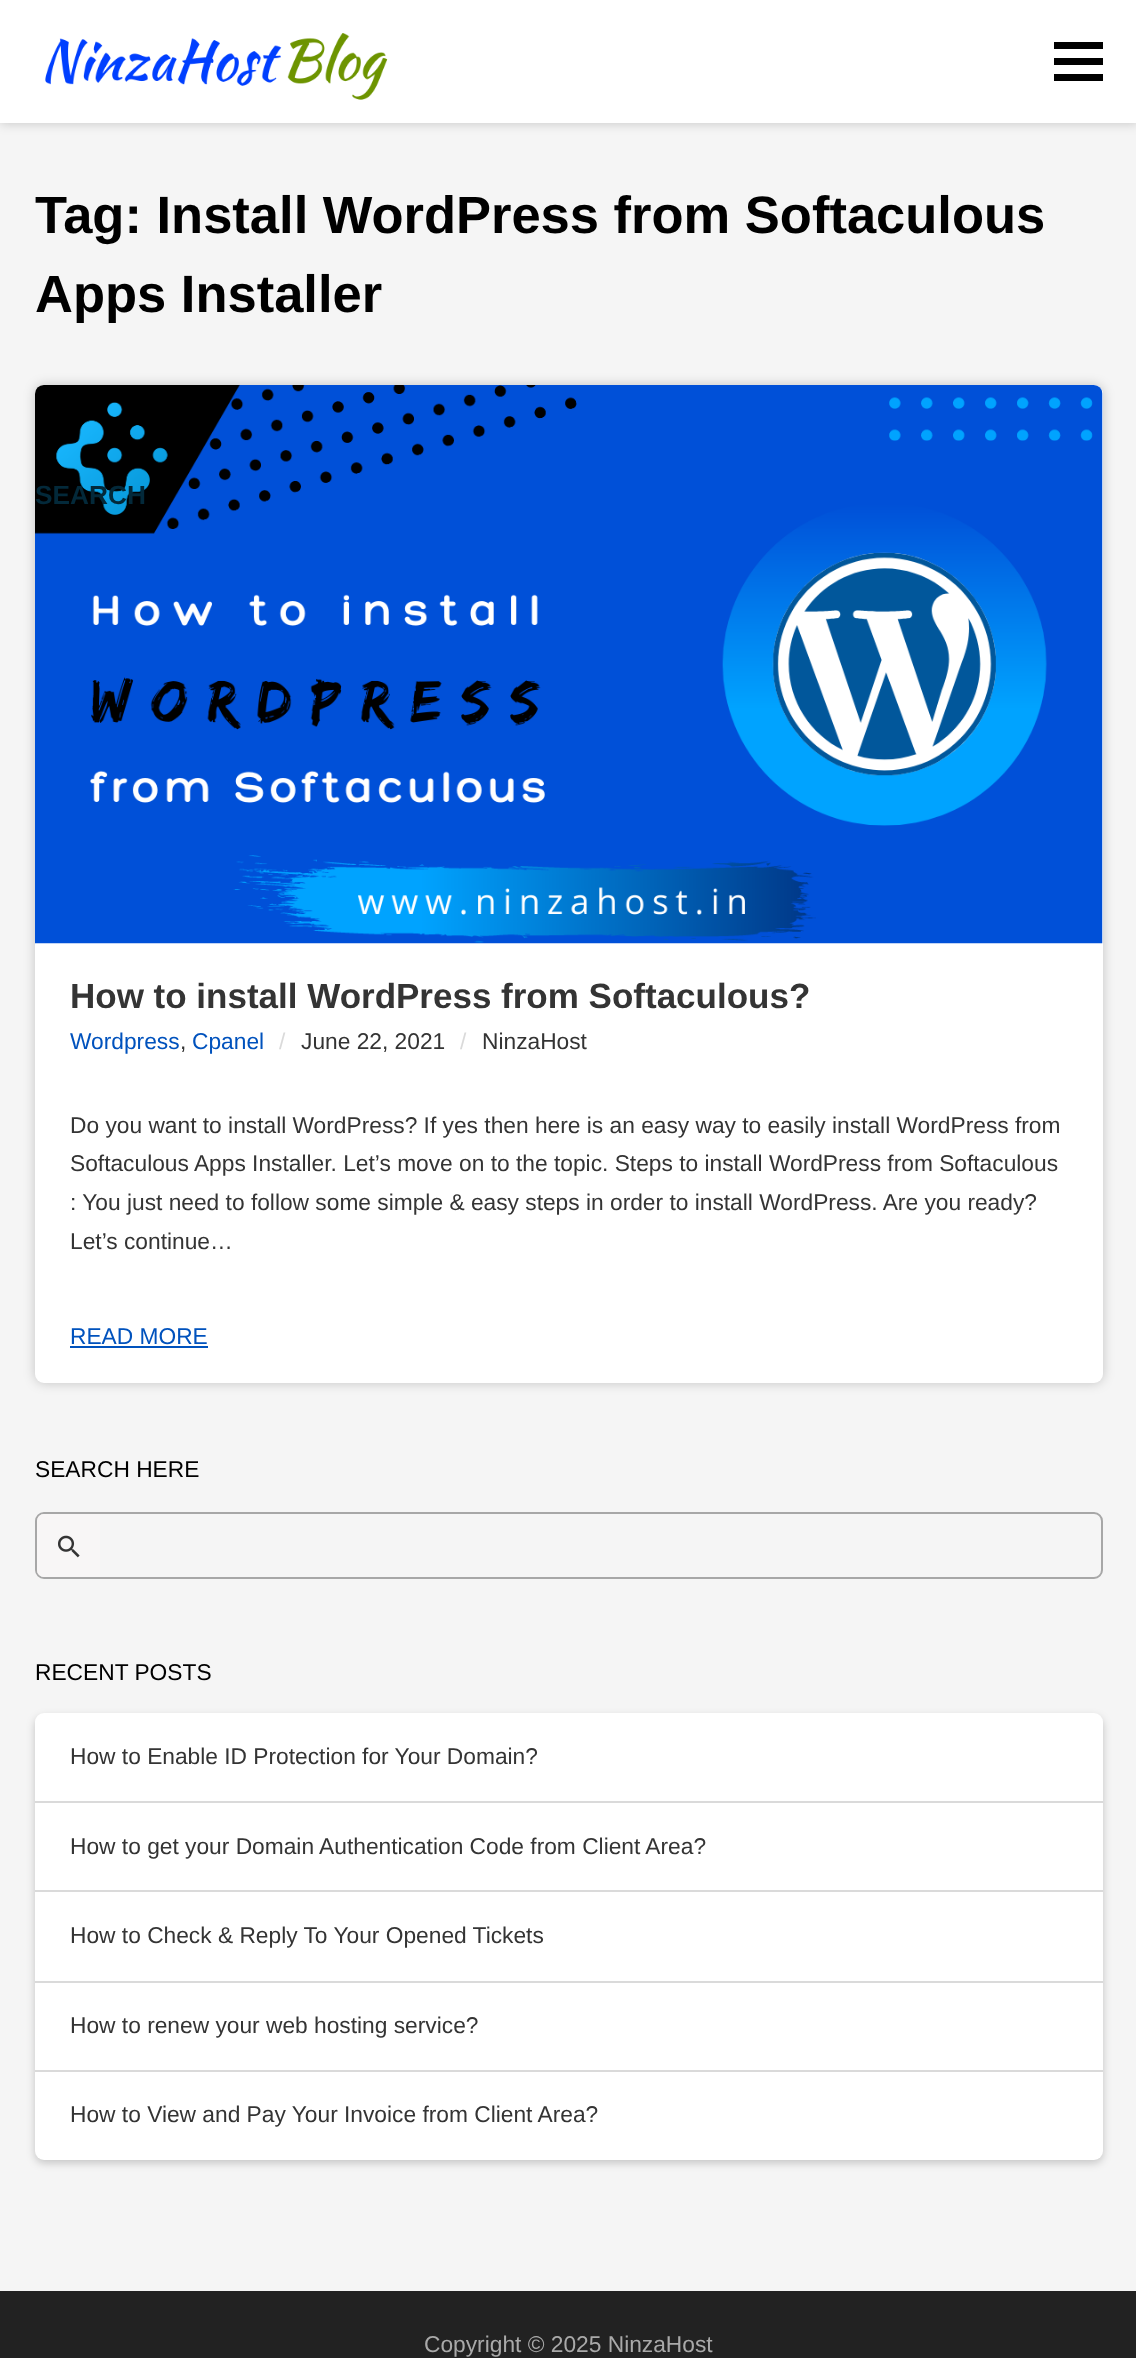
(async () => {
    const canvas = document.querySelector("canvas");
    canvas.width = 1136;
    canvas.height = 2358;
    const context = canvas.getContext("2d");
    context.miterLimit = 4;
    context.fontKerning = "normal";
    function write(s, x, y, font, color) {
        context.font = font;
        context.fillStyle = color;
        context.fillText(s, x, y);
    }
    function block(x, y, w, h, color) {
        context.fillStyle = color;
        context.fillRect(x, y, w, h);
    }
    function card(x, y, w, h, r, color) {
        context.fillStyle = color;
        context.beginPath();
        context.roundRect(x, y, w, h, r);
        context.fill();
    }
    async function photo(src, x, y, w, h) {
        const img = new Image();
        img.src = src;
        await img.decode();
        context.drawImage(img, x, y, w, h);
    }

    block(0, 0, 1136, 2358, "rgb(245, 245, 245)");
    context.fillStyle = "rgba(0, 0, 0, 0.2)";
    context.filter = "blur(6px)";
    context.beginPath();
    context.rect(0, 0, 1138, 123);
    context.fill();
    context.filter = "none";
    block(0, 0, 1136, 123, "rgb(255, 255, 255)");
    await photo("media/1.png", 45, 33, 343, 67);
    block(1054, 58, 49, 7, "rgb(0, 0, 0)");
    block(1054, 42, 49, 7, "rgb(0, 0, 0)");
    block(1054, 74, 49, 7, "rgb(0, 0, 0)");
    write("Tag: Install WordPress from Softaculous", 35, 233, "bold 52.5px Liberation Sans", "rgb(0, 0, 0)");
    write("Apps Installer", 35, 312, "bold 52.5px Liberation Sans", "rgb(0, 0, 0)");
    context.fillStyle = "rgba(0, 0, 0, 0.2)";
    context.filter = "blur(6px)";
    context.beginPath();
    context.roundRect(35, 385, 1068, 998, 9);
    context.fill();
    context.filter = "none";
    card(35, 385, 1068, 998, 9, "rgb(255, 255, 255)");
    await photo("media/2.png", 35, 385, 1068, 559);
    write("How to install WordPress from Softaculous?", 70, 1008, "bold 35px Liberation Sans", "rgb(52, 52, 52)");
    write("Wordpress", 70, 1049, "22.75px Liberation Sans", "rgb(0, 82, 189)");
    write(",", 180, 1049, "22.75px Liberation Sans", "rgb(52, 52, 52)");
    write("Cpanel", 192, 1049, "22.75px Liberation Sans", "rgb(0, 82, 189)");
    write("/", 279, 1049, "22.75px Liberation Sans", "rgb(218, 218, 218)");
    write("June 22, 2021", 301, 1049, "22.75px Liberation Sans", "rgb(52, 52, 52)");
    write("/", 460, 1049, "22.75px Liberation Sans", "rgb(218, 218, 218)");
    write("NinzaHost", 482, 1049, "22.75px Liberation Sans", "rgb(52, 52, 52)");
    write("Do you want to install WordPress? If yes then here is an easy way to easily install WordPress from", 70, 1133, "22.75px Liberation Sans", "rgb(52, 52, 52)");
    write("Softaculous Apps Installer. Let’s move on to the topic. Steps to install WordPress from Softaculous", 70, 1171, "22.75px Liberation Sans", "rgb(52, 52, 52)");
    write(": You just need to follow some simple & easy steps in order to install WordPress. Are you ready?", 70, 1210, "22.75px Liberation Sans", "rgb(52, 52, 52)");
    write("Let’s continue…", 70, 1249, "22.75px Liberation Sans", "rgb(52, 52, 52)");
    write("READ MORE", 70, 1344, "22.75px Liberation Sans", "rgb(0, 82, 189)");
    block(70, 1346, 138, 2, "rgb(0, 82, 189)");
    write("SEARCH HERE", 35, 1477, "22.75px Liberation Sans", "rgb(0, 0, 0)");
    context.beginPath();
    context.roundRect(36, 1513, 1066, 65, 8);
    context.strokeStyle = "rgb(167, 167, 167)";
    context.lineWidth = 2;
    context.stroke();
    context.fillStyle = "rgb(248, 246, 246)";
    context.beginPath();
    context.roundRect(37, 1514, 63, 63, [7, 0, 0, 7]);
    context.fill();
    await photo("media/3.png", 58, 1535, 22, 23);
    write("RECENT POSTS", 35, 1680, "22.75px Liberation Sans", "rgb(0, 0, 0)");
    context.fillStyle = "rgba(0, 0, 0, 0.2)";
    context.filter = "blur(4.5px)";
    context.beginPath();
    context.roundRect(35, 1717, 1068, 446, 9);
    context.fill();
    context.filter = "none";
    card(35, 1713, 1068, 447, 9, "rgb(255, 255, 255)");
    block(35, 1801, 1068, 2, "rgb(218, 218, 218)");
    write("How to Enable ID Protection for Your Domain?", 70, 1764, "22.75px Liberation Sans", "rgb(52, 52, 52)");
    block(35, 1890, 1068, 2, "rgb(218, 218, 218)");
    write("How to get your Domain Authentication Code from Client Area?", 70, 1854, "22.75px Liberation Sans", "rgb(52, 52, 52)");
    block(35, 1981, 1068, 2, "rgb(218, 218, 218)");
    write("How to Check & Reply To Your Opened Tickets", 70, 1943, "22.75px Liberation Sans", "rgb(52, 52, 52)");
    block(35, 2070, 1068, 2, "rgb(218, 218, 218)");
    write("How to renew your web hosting service?", 70, 2033, "22.75px Liberation Sans", "rgb(52, 52, 52)");
    write("How to View and Pay Your Invoice from Client Area?", 70, 2122, "22.75px Liberation Sans", "rgb(52, 52, 52)");
    write("SEARCH", 35, 504, "bold 26.25px Liberation Sans", "rgb(3, 41, 58)");
    block(0, 2291, 1136, 67, "rgb(34, 34, 34)");
    write("Copyright © 2025 NinzaHost", 424, 2352, "22.75px Liberation Sans", "rgb(169, 169, 169)");
})();
